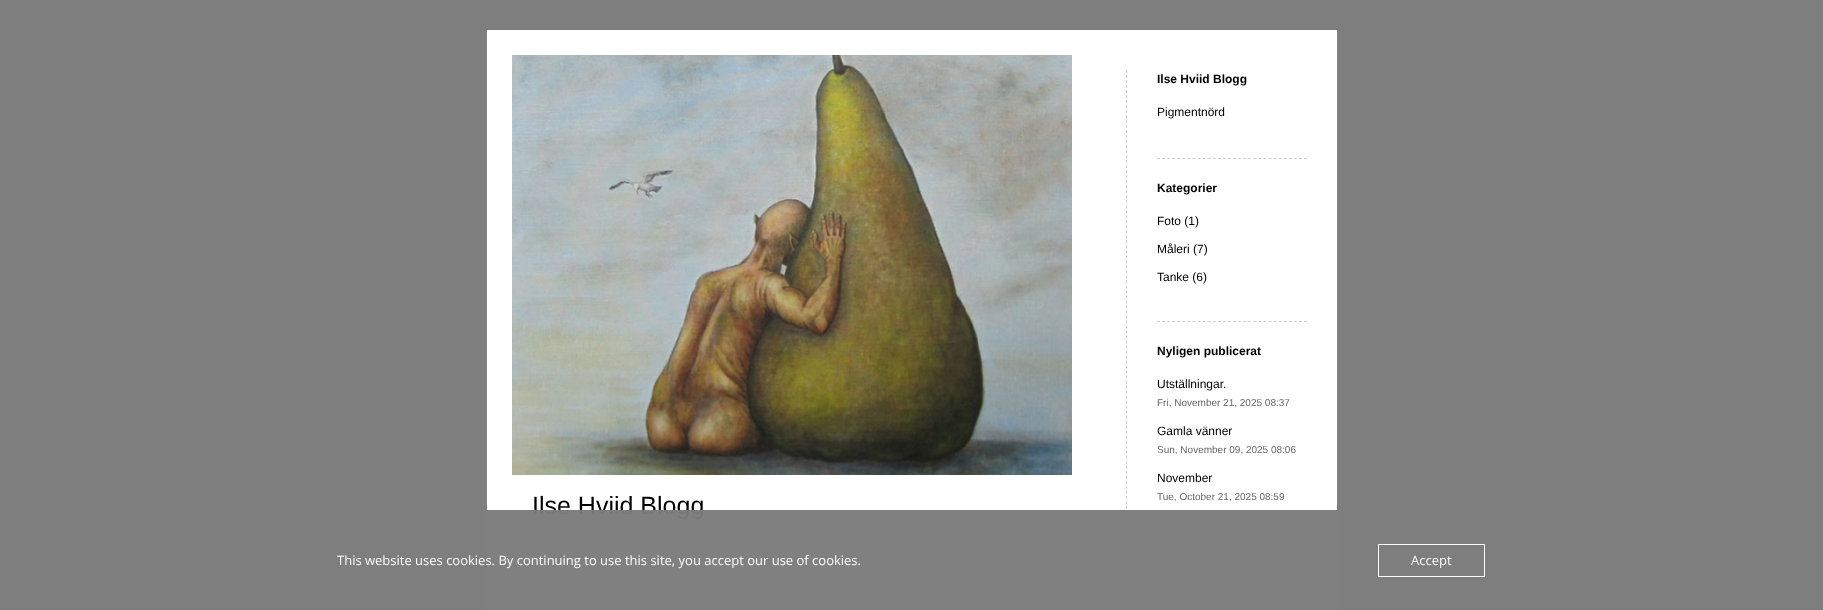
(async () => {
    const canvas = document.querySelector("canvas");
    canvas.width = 1823;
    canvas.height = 610;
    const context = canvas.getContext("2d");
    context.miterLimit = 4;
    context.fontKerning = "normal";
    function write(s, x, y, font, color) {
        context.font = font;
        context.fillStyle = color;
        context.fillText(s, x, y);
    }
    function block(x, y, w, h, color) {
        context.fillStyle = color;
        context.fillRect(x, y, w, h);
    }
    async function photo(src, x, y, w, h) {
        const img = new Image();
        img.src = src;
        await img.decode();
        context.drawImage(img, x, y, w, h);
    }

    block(0, 0, 1823, 610, "rgb(126, 126, 126)");
    block(487, 30, 850, 580, "rgb(255, 255, 255)");
    await photo("media/1.png", 512, 55, 560, 420);
    context.beginPath();
    context.moveTo(1126.5, 70);
    context.lineTo(1126.5, 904);
    context.strokeStyle = "rgb(204, 204, 204)";
    context.setLineDash([3, 2.01]);
    context.stroke();
    context.beginPath();
    context.moveTo(1157, 158.5);
    context.lineTo(1307, 158.5);
    context.setLineDash([3, 2.07]);
    context.stroke();
    write("Ilse Hviid Blogg", 1157, 83, "bold 12px Liberation Sans", "rgb(0, 0, 0)");
    write("Pigmentnörd", 1157, 116, "12px Liberation Sans", "rgb(0, 0, 0)");
    context.beginPath();
    context.moveTo(1157, 321.5);
    context.lineTo(1307, 321.5);
    context.stroke();
    write("Kategorier", 1157, 192, "bold 12px Liberation Sans", "rgb(0, 0, 0)");
    write("Foto (1)", 1157, 225, "12px Liberation Sans", "rgb(0, 0, 0)");
    write("Måleri (7)", 1157, 253, "12px Liberation Sans", "rgb(0, 0, 0)");
    write("Tanke (6)", 1157, 281, "12px Liberation Sans", "rgb(0, 0, 0)");
    write("Nyligen publicerat", 1157, 355, "bold 12px Liberation Sans", "rgb(0, 0, 0)");
    write("Utställningar.", 1157, 388, "12px Liberation Sans", "rgb(0, 0, 0)");
    write("Fri, November 21, 2025 08:37", 1157, 406, "10px Liberation Sans", "rgb(102, 102, 102)");
    write("Gamla vänner", 1157, 435, "12px Liberation Sans", "rgb(0, 0, 0)");
    write("Sun, November 09, 2025 08:06", 1157, 453, "10px Liberation Sans", "rgb(102, 102, 102)");
    write("November", 1157, 482, "12px Liberation Sans", "rgb(0, 0, 0)");
    write("Tue, October 21, 2025 08:59", 1157, 500, "10px Liberation Sans", "rgb(102, 102, 102)");
    block(512, 585, 580, 1, "rgb(204, 204, 204)");
    write("Ilse Hviid Blogg", 532, 514, "25px Liberation Sans", "rgb(0, 0, 0)");
    block(487, 510, 850, 100, "rgba(124, 124, 124, 0.97)");
    write("This website uses cookies. By continuing to use this site, you accept our use of cookies.", 337, 565, "13px Open Sans", "rgb(251, 251, 251)");
    context.strokeStyle = "rgb(251, 251, 251)";
    context.setLineDash([]);
    context.strokeRect(1378.5, 544.5, 106, 32);
    write("Accept", 1411, 565, "13px Open Sans", "rgb(251, 251, 251)");
})();
